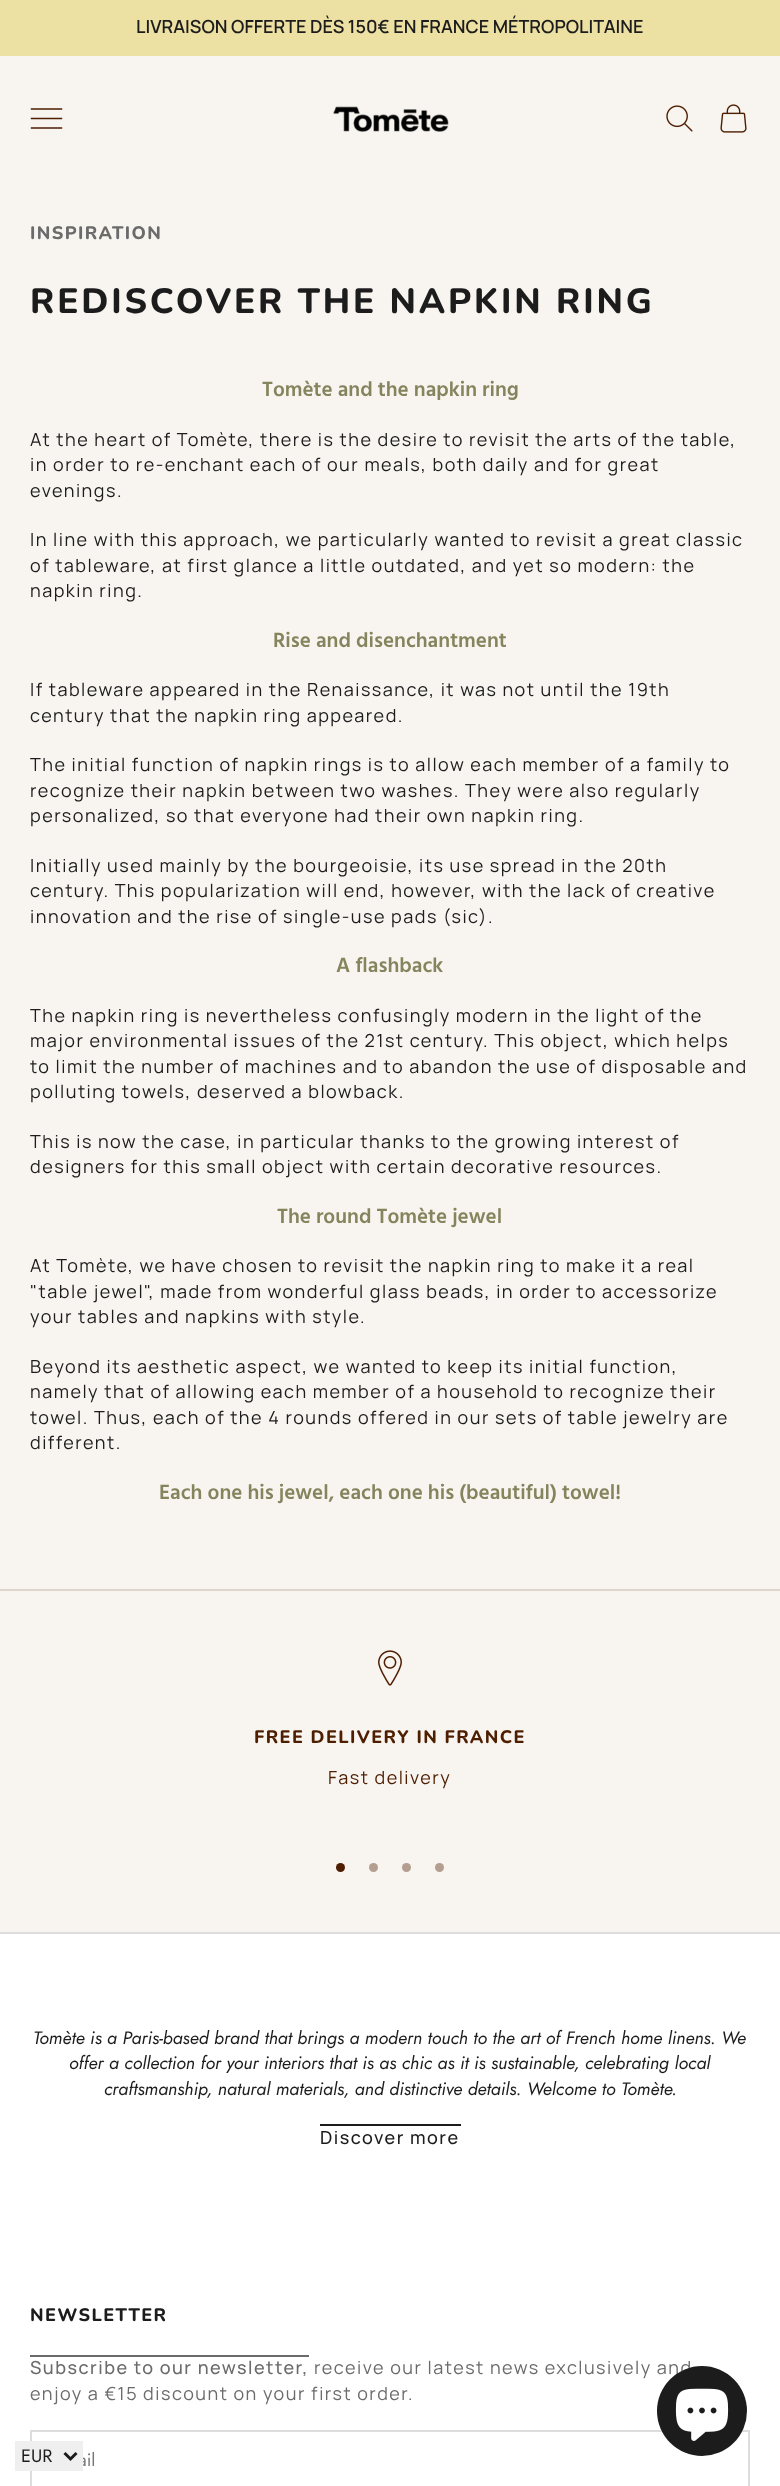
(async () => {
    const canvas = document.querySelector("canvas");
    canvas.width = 780;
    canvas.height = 2486;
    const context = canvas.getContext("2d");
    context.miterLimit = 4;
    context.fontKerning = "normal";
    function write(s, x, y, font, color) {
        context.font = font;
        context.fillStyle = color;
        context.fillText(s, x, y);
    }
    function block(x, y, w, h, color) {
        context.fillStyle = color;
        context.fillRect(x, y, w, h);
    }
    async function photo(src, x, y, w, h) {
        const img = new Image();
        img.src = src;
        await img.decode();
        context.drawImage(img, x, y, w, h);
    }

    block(0, 0, 780, 2486, "rgb(248, 244, 240)");
    block(0, 0, 780, 56, "rgb(237, 224, 163)");
    write("LIVRAISON OFFERTE DÈS 150€ EN FRANCE MÉTROPOLITAINE", 136, 33, "200 18px 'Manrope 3'", "rgb(28, 28, 28)");
    context.beginPath();
    context.moveTo(31.5, 128);
    context.lineTo(61.5, 128);
    context.moveTo(31.5, 118.5);
    context.lineTo(61.5, 118.5);
    context.moveTo(31.5, 109);
    context.lineTo(61.5, 109);
    context.strokeStyle = "rgb(78, 30, 1)";
    context.lineWidth = 1.4;
    context.lineCap = "square";
    context.stroke();
    await photo("media/1.png", 333, 106, 116, 26);
    await photo("media/2.png", 666, 105, 27, 27);
    await photo("media/3.png", 720, 104, 27, 29);
    context.letterSpacing = "1.4px";
    write("INSPIRATION", 30, 239, "800 18px Nunito", "rgb(107, 107, 107)");
    context.letterSpacing = "2.8px";
    write("REDISCOVER THE NAPKIN RING", 30, 313, "800 35.1px Nunito", "rgb(28, 28, 28)");
    context.letterSpacing = "0px";
    write("Tomète and the napkin ring", 262, 396, "600 21px Hind Siliguri", "rgb(132, 132, 93)");
    context.letterSpacing = "1.5px";
    write("At the heart of Tomète, there is the desire to revisit the arts of the table,", 30, 446, "200 18px Manrope", "rgb(28, 28, 28)");
    write("in order to re-enchant each of our meals, both daily and for great", 30, 471, "200 18px Manrope", "rgb(28, 28, 28)");
    write("evenings.", 30, 497, "200 18px Manrope", "rgb(28, 28, 28)");
    write("In line with this approach, we particularly wanted to revisit a great classic", 30, 546, "200 18px Manrope", "rgb(28, 28, 28)");
    write("of tableware, at first glance a little outdated, and yet so modern: the", 30, 572, "200 18px Manrope", "rgb(28, 28, 28)");
    write("napkin ring.", 30, 597, "200 18px Manrope", "rgb(28, 28, 28)");
    context.letterSpacing = "0px";
    write("Rise and disenchantment", 273, 647, "600 21px Hind Siliguri", "rgb(132, 132, 93)");
    context.letterSpacing = "1.5px";
    write("If tableware appeared in the Renaissance, it was not until the 19th", 30, 696, "200 18px Manrope", "rgb(28, 28, 28)");
    write("century that the napkin ring appeared.", 30, 722, "200 18px Manrope", "rgb(28, 28, 28)");
    write("The initial function of napkin rings is to allow each member of a family to", 30, 771, "200 18px Manrope", "rgb(28, 28, 28)");
    write("recognize their napkin between two washes. They were also regularly", 30, 797, "200 18px Manrope", "rgb(28, 28, 28)");
    write("personalized, so that everyone had their own napkin ring.", 30, 822, "200 18px Manrope", "rgb(28, 28, 28)");
    write("Initially used mainly by the bourgeoisie, its use spread in the 20th", 30, 872, "200 18px Manrope", "rgb(28, 28, 28)");
    write("century. This popularization will end, however, with the lack of creative", 30, 897, "200 18px Manrope", "rgb(28, 28, 28)");
    write("innovation and the rise of single-use pads (sic).", 30, 923, "200 18px Manrope", "rgb(28, 28, 28)");
    context.letterSpacing = "0px";
    write("A flashback", 336, 972, "600 21px Hind Siliguri", "rgb(132, 132, 93)");
    context.letterSpacing = "1.5px";
    write("The napkin ring is nevertheless confusingly modern in the light of the", 30, 1022, "200 18px Manrope", "rgb(28, 28, 28)");
    write("major environmental issues of the 21st century. This object, which helps", 30, 1047, "200 18px Manrope", "rgb(28, 28, 28)");
    write("to limit the number of machines and to abandon the use of disposable and", 30, 1073, "200 18px Manrope", "rgb(28, 28, 28)");
    write("polluting towels, deserved a blowback.", 30, 1098, "200 18px Manrope", "rgb(28, 28, 28)");
    write("This is now the case, in particular thanks to the growing interest of", 30, 1148, "200 18px Manrope", "rgb(28, 28, 28)");
    write("designers for this small object with certain decorative resources.", 30, 1173, "200 18px Manrope", "rgb(28, 28, 28)");
    context.letterSpacing = "0px";
    write("The round Tomète jewel", 277, 1223, "600 21px Hind Siliguri", "rgb(132, 132, 93)");
    context.letterSpacing = "1.5px";
    write("At Tomète, we have chosen to revisit the napkin ring to make it a real", 30, 1272, "200 18px Manrope", "rgb(28, 28, 28)");
    write("\"table jewel\", made from wonderful glass beads, in order to accessorize", 30, 1298, "200 18px Manrope", "rgb(28, 28, 28)");
    write("your tables and napkins with style.", 30, 1323, "200 18px Manrope", "rgb(28, 28, 28)");
    write("Beyond its aesthetic aspect, we wanted to keep its initial function,", 30, 1373, "200 18px Manrope", "rgb(28, 28, 28)");
    write("namely that of allowing each member of a household to recognize their", 30, 1398, "200 18px Manrope", "rgb(28, 28, 28)");
    write("towel. Thus, each of the 4 rounds offered in our sets of table jewelry are", 30, 1424, "200 18px Manrope", "rgb(28, 28, 28)");
    write("different.", 30, 1449, "200 18px Manrope", "rgb(28, 28, 28)");
    context.letterSpacing = "0px";
    write("Each one his jewel, each one his (beautiful) towel!", 159, 1499, "600 21px Hind Siliguri", "rgb(132, 132, 93)");
    block(0, 1589, 780, 2, "rgb(222, 212, 204)");
    await photo("media/4.png", 378, 1650, 24, 36);
    context.letterSpacing = "1.4px";
    write("FREE DELIVERY IN FRANCE", 254, 1743, "800 18px Nunito", "rgb(78, 30, 1)");
    context.letterSpacing = "1.5px";
    write("Fast delivery", 328, 1784, "200 18px Manrope", "rgb(78, 30, 1)");
    context.beginPath();
    context.arc(340.5, 1867.5, 4.5, 0, Math.PI * 2);
    context.fill();
    context.fillStyle = "rgb(180, 158, 144)";
    context.beginPath();
    context.arc(373.5, 1867.5, 4.5, 0, Math.PI * 2);
    context.fill();
    context.beginPath();
    context.arc(406.5, 1867.5, 4.5, 0, Math.PI * 2);
    context.fill();
    context.beginPath();
    context.arc(439.5, 1867.5, 4.5, 0, Math.PI * 2);
    context.fill();
    block(0, 1934, 780, 552, "rgb(255, 255, 255)");
    block(0, 1932, 780, 2, "rgb(221, 221, 221)");
    context.letterSpacing = "0px";
    write("Tomète is a Paris-based brand that brings a modern touch to the art of French home linens. We", 33, 2044, "italic 18px Jost", "rgb(28, 28, 28)");
    write("offer a collection for your interiors that is as chic as it is sustainable, celebrating local", 69, 2069, "italic 18px Jost", "rgb(28, 28, 28)");
    write("craftsmanship, natural materials, and distinctive details. Welcome to Tomète.", 104, 2095, "italic 18px Jost", "rgb(28, 28, 28)");
    context.letterSpacing = "1.5px";
    write("Discover more", 320, 2144, "200 18px 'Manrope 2'", "rgb(28, 28, 28)");
    block(320, 2124, 141, 2, "rgb(28, 28, 28)");
    context.letterSpacing = "1.4px";
    write("NEWSLETTER", 30, 2321, "800 18px Nunito", "rgb(28, 28, 28)");
    context.letterSpacing = "1.5px";
    write("Subscribe to our newsletter,", 30, 2374, "200 18px 'Manrope 2'", "rgb(107, 107, 107)");
    block(30, 2355, 279, 2, "rgb(107, 107, 107)");
    write("receive our latest news exclusively and", 314, 2374, "200 18px Manrope", "rgb(107, 107, 107)");
    write("enjoy a €15 discount on your first order.", 30, 2400, "200 18px Manrope", "rgb(107, 107, 107)");
    context.strokeStyle = "rgb(221, 221, 221)";
    context.lineWidth = 2;
    context.strokeRect(31, 2431, 718, 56);
    context.letterSpacing = "0px";
    write("ail", 78, 2466, "18px Jost", "rgb(119, 119, 119)");
    block(15, 2441, 68, 30, "rgb(239, 239, 239)");
    context.beginPath();
    context.moveTo(64.5, 2453);
    context.lineTo(70.5, 2459);
    context.lineTo(76.5, 2453);
    context.strokeStyle = "rgb(28, 28, 28)";
    context.lineWidth = 3;
    context.lineCap = "butt";
    context.stroke();
    write("EUR", 21, 2462, "18px Jost", "rgb(28, 28, 28)");
    context.beginPath();
    context.arc(702, 2411, 45, 0, Math.PI * 2);
    context.fill();
    await photo("media/5.png", 675, 2388, 54, 53);
})();
